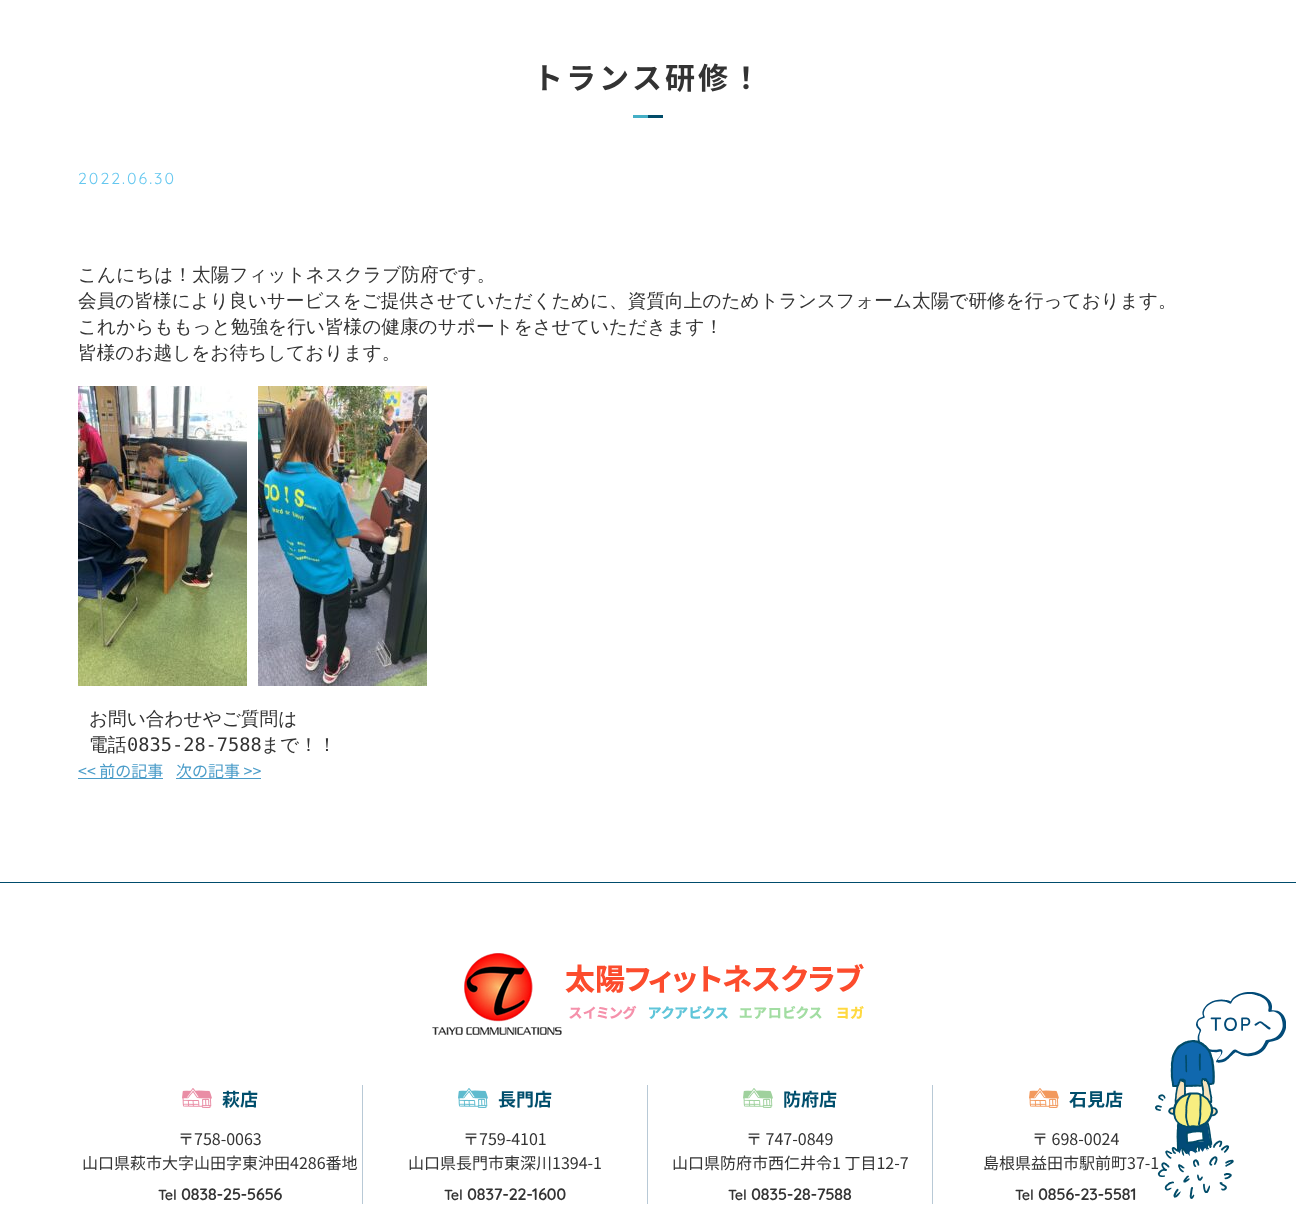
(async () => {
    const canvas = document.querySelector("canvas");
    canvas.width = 1296;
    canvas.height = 1219;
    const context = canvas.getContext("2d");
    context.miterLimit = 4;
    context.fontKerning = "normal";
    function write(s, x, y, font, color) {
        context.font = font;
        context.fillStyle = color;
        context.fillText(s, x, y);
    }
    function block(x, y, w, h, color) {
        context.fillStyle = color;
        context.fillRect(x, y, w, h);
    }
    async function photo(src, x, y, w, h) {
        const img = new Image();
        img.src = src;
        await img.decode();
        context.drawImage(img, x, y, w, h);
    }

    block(0, 0, 1296, 1219, "rgb(255, 255, 255)");
    context.letterSpacing = "3px";
    write("トランス研修！", 533, 89, "bold 30px Noto Sans JP", "rgb(51, 51, 51)");
    block(633, 115, 15, 3, "rgb(68, 175, 198)");
    block(648, 115, 15, 3, "rgb(1, 76, 105)");
    context.letterSpacing = "2px";
    write("2022.06.30", 78, 184, "16px Quicksand", "rgb(101, 199, 239)");
    context.letterSpacing = "0px";
    write("こんにちは！太陽フィットネスクラブ防府です。", 78, 281, "500 18.67px WenQuanYi Zen Hei", "rgb(51, 51, 51)");
    write("会員の皆様により良いサービスをご提供させていただくために、資質向上のためトランスフォーム太陽で研修を行っております。", 78, 307, "500 18.67px WenQuanYi Zen Hei", "rgb(51, 51, 51)");
    write("これからももっと勉強を行い皆様の健康のサポートをさせていただきます！", 78, 333, "500 18.67px WenQuanYi Zen Hei", "rgb(51, 51, 51)");
    write("皆様のお越しをお待ちしております。", 78, 359, "500 18.67px WenQuanYi Zen Hei", "rgb(51, 51, 51)");
    await photo("media/1.png", 78, 386, 169, 300);
    await photo("media/2.png", 258, 386, 169, 300);
    write("お問い合わせやご質問は", 89, 725, "500 18.67px WenQuanYi Zen Hei", "rgb(51, 51, 51)");
    write("電話", 89, 751, "500 18.67px WenQuanYi Zen Hei", "rgb(51, 51, 51)");
    write("0835-28-7588", 127, 751, "18.67px DejaVu Sans Mono", "rgb(51, 51, 51)");
    write("まで！！", 261, 751, "500 18.67px WenQuanYi Zen Hei", "rgb(51, 51, 51)");
    block(78, 778, 85, 1, "rgb(76, 157, 201)");
    write("<< 前の記事", 78, 777, "16px Noto Sans JP", "rgb(76, 157, 201)");
    block(176, 778, 85, 1, "rgb(76, 157, 201)");
    write("次の記事 >>", 176, 777, "16px Noto Sans JP", "rgb(76, 157, 201)");
    block(0, 882, 1296, 1, "rgb(0, 76, 108)");
    await photo("media/3.png", 432, 953, 432, 82);
    write("島根県益田市駅前町37-1", 983, 1169, "16px Noto Sans JP", "rgb(51, 51, 51)");
    await photo("media/4.png", 1155, 992, 131, 207);
    block(362, 1085, 1, 119, "rgb(184, 201, 214)");
    await photo("media/5.png", 182, 1088, 30, 20);
    write("萩店", 222, 1106, "bold 18px Noto Sans JP", "rgb(0, 78, 108)");
    write("〒758-0063", 178, 1145, "16px Noto Sans JP", "rgb(51, 51, 51)");
    write("山口県萩市大字山田字東沖田4286番地", 82, 1169, "16px Noto Sans JP", "rgb(51, 51, 51)");
    write("Tel", 158, 1200, "bold 14px Quicksand", "rgb(51, 51, 51)");
    write("0838-25-5656", 181, 1200, "bold 16px Quicksand", "rgb(51, 51, 51)");
    block(647, 1085, 1, 119, "rgb(184, 201, 214)");
    await photo("media/6.png", 458, 1088, 30, 20);
    write("長門店", 498, 1106, "bold 18px Noto Sans JP", "rgb(0, 78, 108)");
    write("〒759-4101", 463, 1145, "16px Noto Sans JP", "rgb(51, 51, 51)");
    write("山口県長門市東深川1394-1", 408, 1169, "16px Noto Sans JP", "rgb(51, 51, 51)");
    write("Tel", 444, 1200, "bold 14px Quicksand", "rgb(51, 51, 51)");
    write("0837-22-1600", 467, 1200, "bold 16px Quicksand", "rgb(51, 51, 51)");
    block(932, 1085, 1, 119, "rgb(184, 201, 214)");
    await photo("media/7.png", 743, 1088, 30, 20);
    write("防府店", 783, 1106, "bold 18px Noto Sans JP", "rgb(0, 78, 108)");
    write("〒 747-0849", 746, 1145, "16px Noto Sans JP", "rgb(51, 51, 51)");
    write("山口県防府市西仁井令1 丁目12-7", 672, 1169, "16px Noto Sans JP", "rgb(51, 51, 51)");
    write("Tel", 728, 1200, "bold 14px Quicksand", "rgb(51, 51, 51)");
    write("0835-28-7588", 751, 1200, "bold 16px Quicksand", "rgb(51, 51, 51)");
    await photo("media/8.png", 1029, 1088, 30, 20);
    write("石見店", 1069, 1106, "bold 18px Noto Sans JP", "rgb(0, 78, 108)");
    write("〒 698-0024", 1032, 1145, "16px Noto Sans JP", "rgb(51, 51, 51)");
    write("Tel", 1015, 1200, "bold 14px Quicksand", "rgb(51, 51, 51)");
    write("0856-23-5581", 1038, 1200, "bold 16px Quicksand", "rgb(51, 51, 51)");
})();
